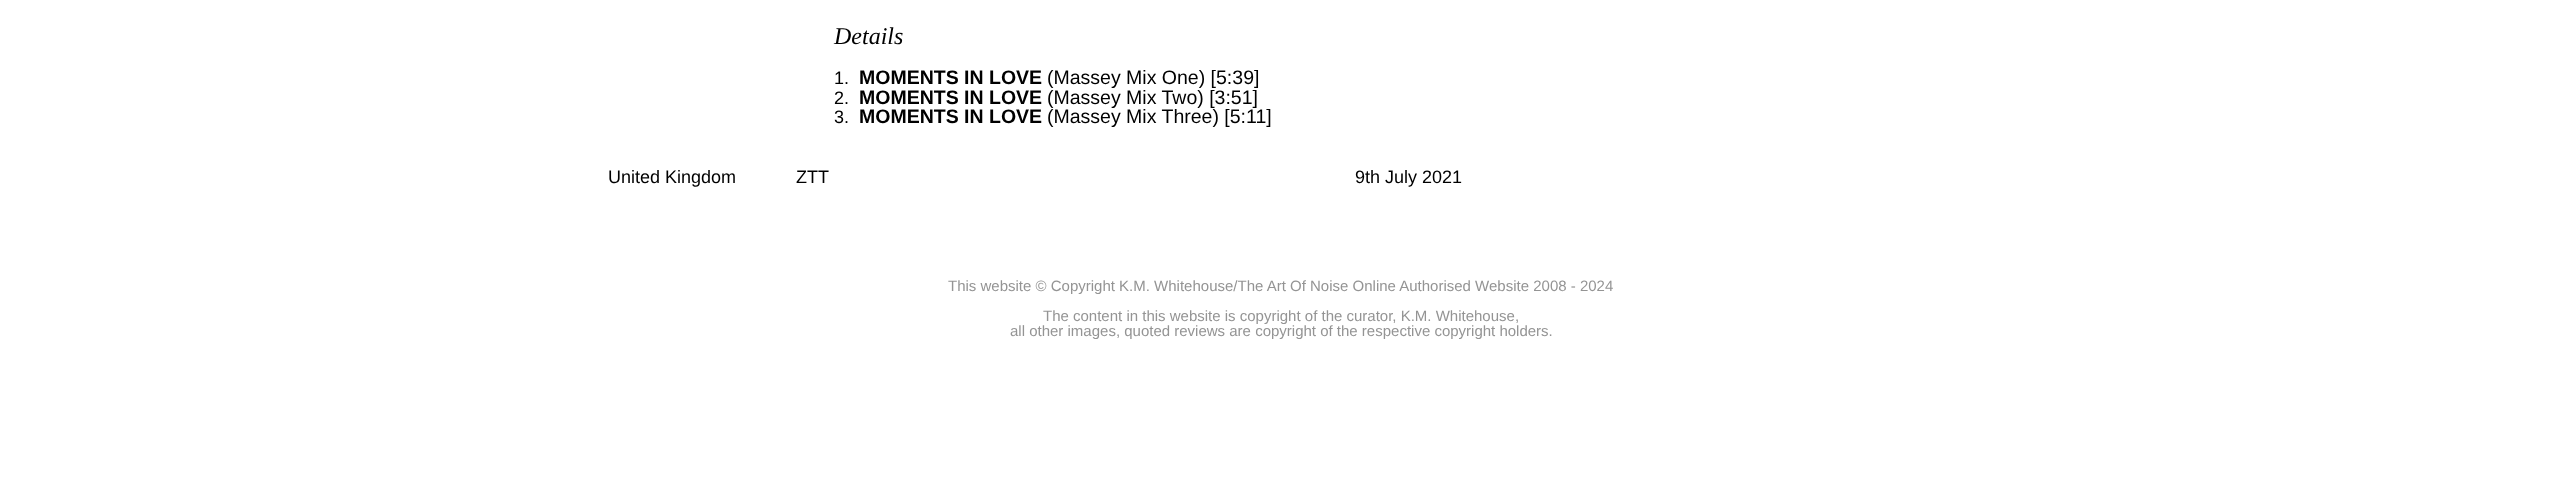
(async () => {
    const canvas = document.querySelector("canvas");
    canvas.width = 2561;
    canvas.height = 501;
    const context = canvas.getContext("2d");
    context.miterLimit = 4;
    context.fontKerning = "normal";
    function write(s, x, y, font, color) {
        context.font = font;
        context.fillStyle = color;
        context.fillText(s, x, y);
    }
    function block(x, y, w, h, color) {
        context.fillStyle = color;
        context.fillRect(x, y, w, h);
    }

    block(0, 0, 2561, 501, "rgb(255, 255, 255)");
    write("Details", 834, 44, "italic 24px Liberation Serif", "rgb(0, 0, 0)");
    write("1.", 834, 84, "18px Liberation Sans", "rgb(0, 0, 0)");
    write("MOMENTS IN LOVE", 859, 84, "bold 19.5px Liberation Sans", "rgb(0, 0, 0)");
    write("(Massey Mix One) [5:39]", 1047, 84, "19.5px Liberation Sans", "rgb(0, 0, 0)");
    write("2.", 834, 104, "18px Liberation Sans", "rgb(0, 0, 0)");
    write("MOMENTS IN LOVE", 859, 104, "bold 19.5px Liberation Sans", "rgb(0, 0, 0)");
    write("(Massey Mix Two) [3:51]", 1047, 104, "19.5px Liberation Sans", "rgb(0, 0, 0)");
    write("3.", 834, 123, "18px Liberation Sans", "rgb(0, 0, 0)");
    write("MOMENTS IN LOVE", 859, 123, "bold 19.5px Liberation Sans", "rgb(0, 0, 0)");
    write("(Massey Mix Three) [5:11]", 1047, 123, "19.5px Liberation Sans", "rgb(0, 0, 0)");
    write("United Kingdom", 608, 183, "18px Liberation Sans", "rgb(0, 0, 0)");
    write("ZTT", 796, 183, "18px Liberation Sans", "rgb(0, 0, 0)");
    write("9th July 2021", 1355, 183, "18px Liberation Sans", "rgb(0, 0, 0)");
    write("This website © Copyright K.M. Whitehouse/The Art Of Noise Online Authorised Website 2008 - 2024", 948, 291, "15px Liberation Sans", "rgb(148, 148, 148)");
    write("The content in this website is copyright of the curator, K.M. Whitehouse,", 1043, 321, "15px Liberation Sans", "rgb(148, 148, 148)");
    write("all other images, quoted reviews are copyright of the respective copyright holders.", 1010, 336, "15px Liberation Sans", "rgb(148, 148, 148)");
})();
